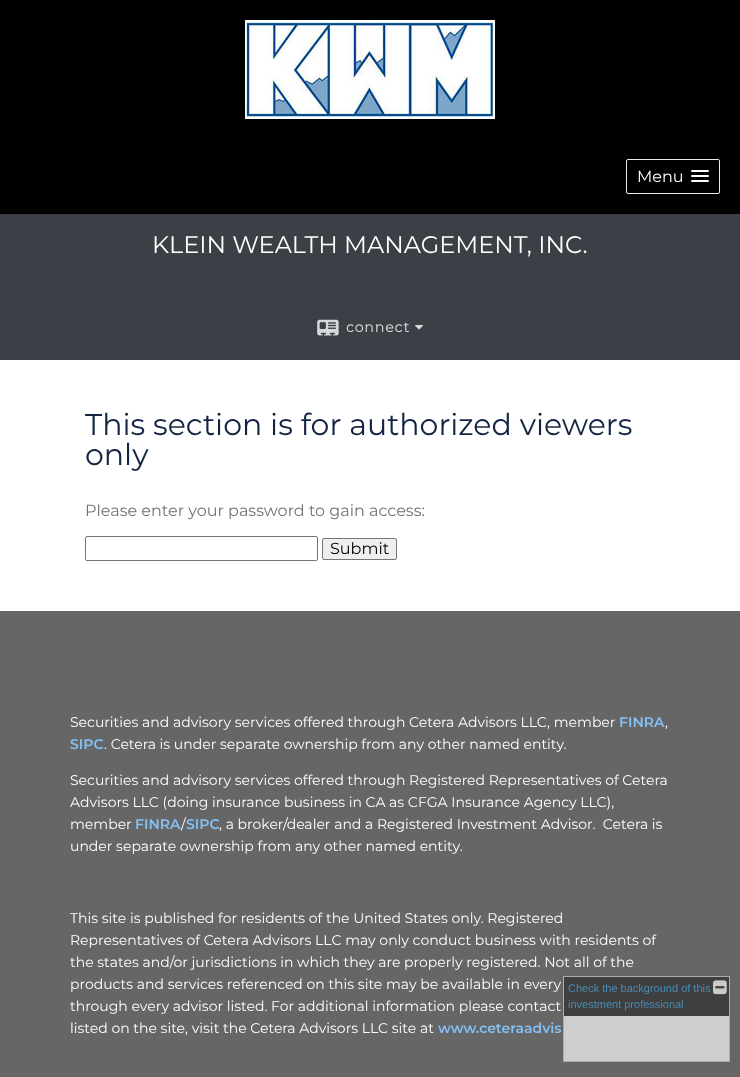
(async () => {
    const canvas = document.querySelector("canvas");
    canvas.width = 740;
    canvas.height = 1077;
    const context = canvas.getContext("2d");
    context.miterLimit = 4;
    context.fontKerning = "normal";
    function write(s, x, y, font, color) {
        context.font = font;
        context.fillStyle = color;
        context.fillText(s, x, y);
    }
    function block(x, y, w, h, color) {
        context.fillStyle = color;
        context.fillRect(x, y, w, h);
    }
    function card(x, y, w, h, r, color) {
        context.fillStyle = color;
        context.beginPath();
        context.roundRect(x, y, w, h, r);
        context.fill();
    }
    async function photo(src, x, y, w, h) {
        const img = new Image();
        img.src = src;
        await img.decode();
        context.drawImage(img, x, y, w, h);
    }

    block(0, 0, 740, 1077, "rgb(0, 0, 0)");
    await photo("media/1.png", 245, 20, 250, 99);
    context.beginPath();
    context.roundRect(626.5, 159.5, 93, 34, 1.5);
    context.strokeStyle = "rgb(236, 236, 236)";
    context.stroke();
    write("Menu", 637, 182, "16px Montserrat", "rgb(255, 255, 255)");
    card(691, 170, 18, 2, 1, "rgb(251, 251, 251)");
    card(691, 175, 18, 2, 1, "rgb(251, 251, 251)");
    card(691, 180, 18, 2, 1, "rgb(251, 251, 251)");
    block(0, 214, 740, 146, "rgb(59, 64, 70)");
    write("KLEIN WEALTH MANAGEMENT, INC.", 152, 253, "24px Montserrat", "rgb(255, 255, 255)");
    await photo("media/2.png", 317, 319, 22, 17);
    context.letterSpacing = "1px";
    write("connect", 346, 332, "bold 14px Montserrat", "rgb(216, 217, 218)");
    await photo("media/3.png", 415, 325, 8, 5);
    block(0, 360, 740, 251, "rgb(255, 255, 255)");
    context.letterSpacing = "0px";
    write("This section is for authorized viewers", 85, 435, "30px Montserrat", "rgb(18, 36, 66)");
    write("only", 85, 465, "30px Montserrat", "rgb(18, 36, 66)");
    write("Please enter your password to gain access:", 85, 516, "16px Montserrat", "rgb(115, 115, 115)");
    context.beginPath();
    context.roundRect(85.5, 536.5, 232, 24, 1.5);
    context.strokeStyle = "rgb(118, 118, 118)";
    context.stroke();
    context.fillStyle = "rgb(239, 239, 239)";
    context.beginPath();
    context.roundRect(322.5, 538.5, 74, 21, 1.5);
    context.fill();
    context.stroke();
    write("Submit", 330, 554, "16px Montserrat", "rgb(0, 0, 0)");
    block(0, 611, 740, 466, "rgb(102, 102, 102)");
    write("Securities and advisory services offered through Cetera Advisors LLC, member", 70, 727, "14px Montserrat", "rgb(255, 255, 255)");
    write("FINRA", 619, 727, "600 14px Montserrat", "rgb(133, 193, 245)");
    write(",", 665, 727, "14px Montserrat", "rgb(255, 255, 255)");
    write("SIPC", 70, 749, "600 14px Montserrat", "rgb(133, 193, 245)");
    write(". Cetera is under separate ownership from any other named entity.", 104, 749, "14px Montserrat", "rgb(255, 255, 255)");
    write("Securities and advisory services offered through Registered Representatives of Cetera", 70, 785, "14px Montserrat", "rgb(255, 255, 255)");
    write("Advisors LLC (doing insurance business in CA as CFGA Insurance Agency LLC),", 70, 807, "14px Montserrat", "rgb(255, 255, 255)");
    write("member", 70, 829, "14px Montserrat", "rgb(255, 255, 255)");
    write("FINRA", 135, 829, "600 14px Montserrat", "rgb(133, 193, 245)");
    write("/", 181, 829, "14px Montserrat", "rgb(255, 255, 255)");
    write("SIPC", 186, 829, "600 14px Montserrat", "rgb(133, 193, 245)");
    write(", a broker/dealer and a Registered Investment Advisor.  Cetera is", 219, 829, "14px Montserrat", "rgb(255, 255, 255)");
    write("under separate ownership from any other named entity.", 70, 851, "14px Montserrat", "rgb(255, 255, 255)");
    write("This site is published for residents of the United States only. Registered", 70, 923, "14px Montserrat", "rgb(255, 255, 255)");
    write("Representatives of Cetera Advisors LLC may only conduct business with residents of", 70, 945, "14px Montserrat", "rgb(255, 255, 255)");
    write("the states and/or jurisdictions in which they are properly registered. Not all of the", 70, 967, "14px Montserrat", "rgb(255, 255, 255)");
    write("products and services referenced on this site may be available in every", 70, 989, "14px Montserrat", "rgb(255, 255, 255)");
    write("through every advisor listed. For additional information please contact", 70, 1011, "14px Montserrat", "rgb(255, 255, 255)");
    write("listed on the site, visit the Cetera Advisors LLC site at", 70, 1033, "14px Montserrat", "rgb(255, 255, 255)");
    write("www.ceteraadvis", 438, 1033, "600 14px Montserrat", "rgb(133, 193, 245)");
    block(563, 976, 167, 86, "rgba(51, 51, 51, 0.75)");
    context.strokeStyle = "rgba(210, 210, 210, 0.75)";
    context.strokeRect(563.5, 976.5, 166, 85);
    write("Check the background of this", 568, 992, "11px Liberation Sans", "rgb(71, 140, 181)");
    write("investment professional", 568, 1008, "11px Liberation Sans", "rgb(71, 140, 181)");
    await photo("media/4.png", 713, 980, 14, 15);
    block(564, 1016, 165, 45, "rgba(255, 255, 255, 0.75)");
})();
